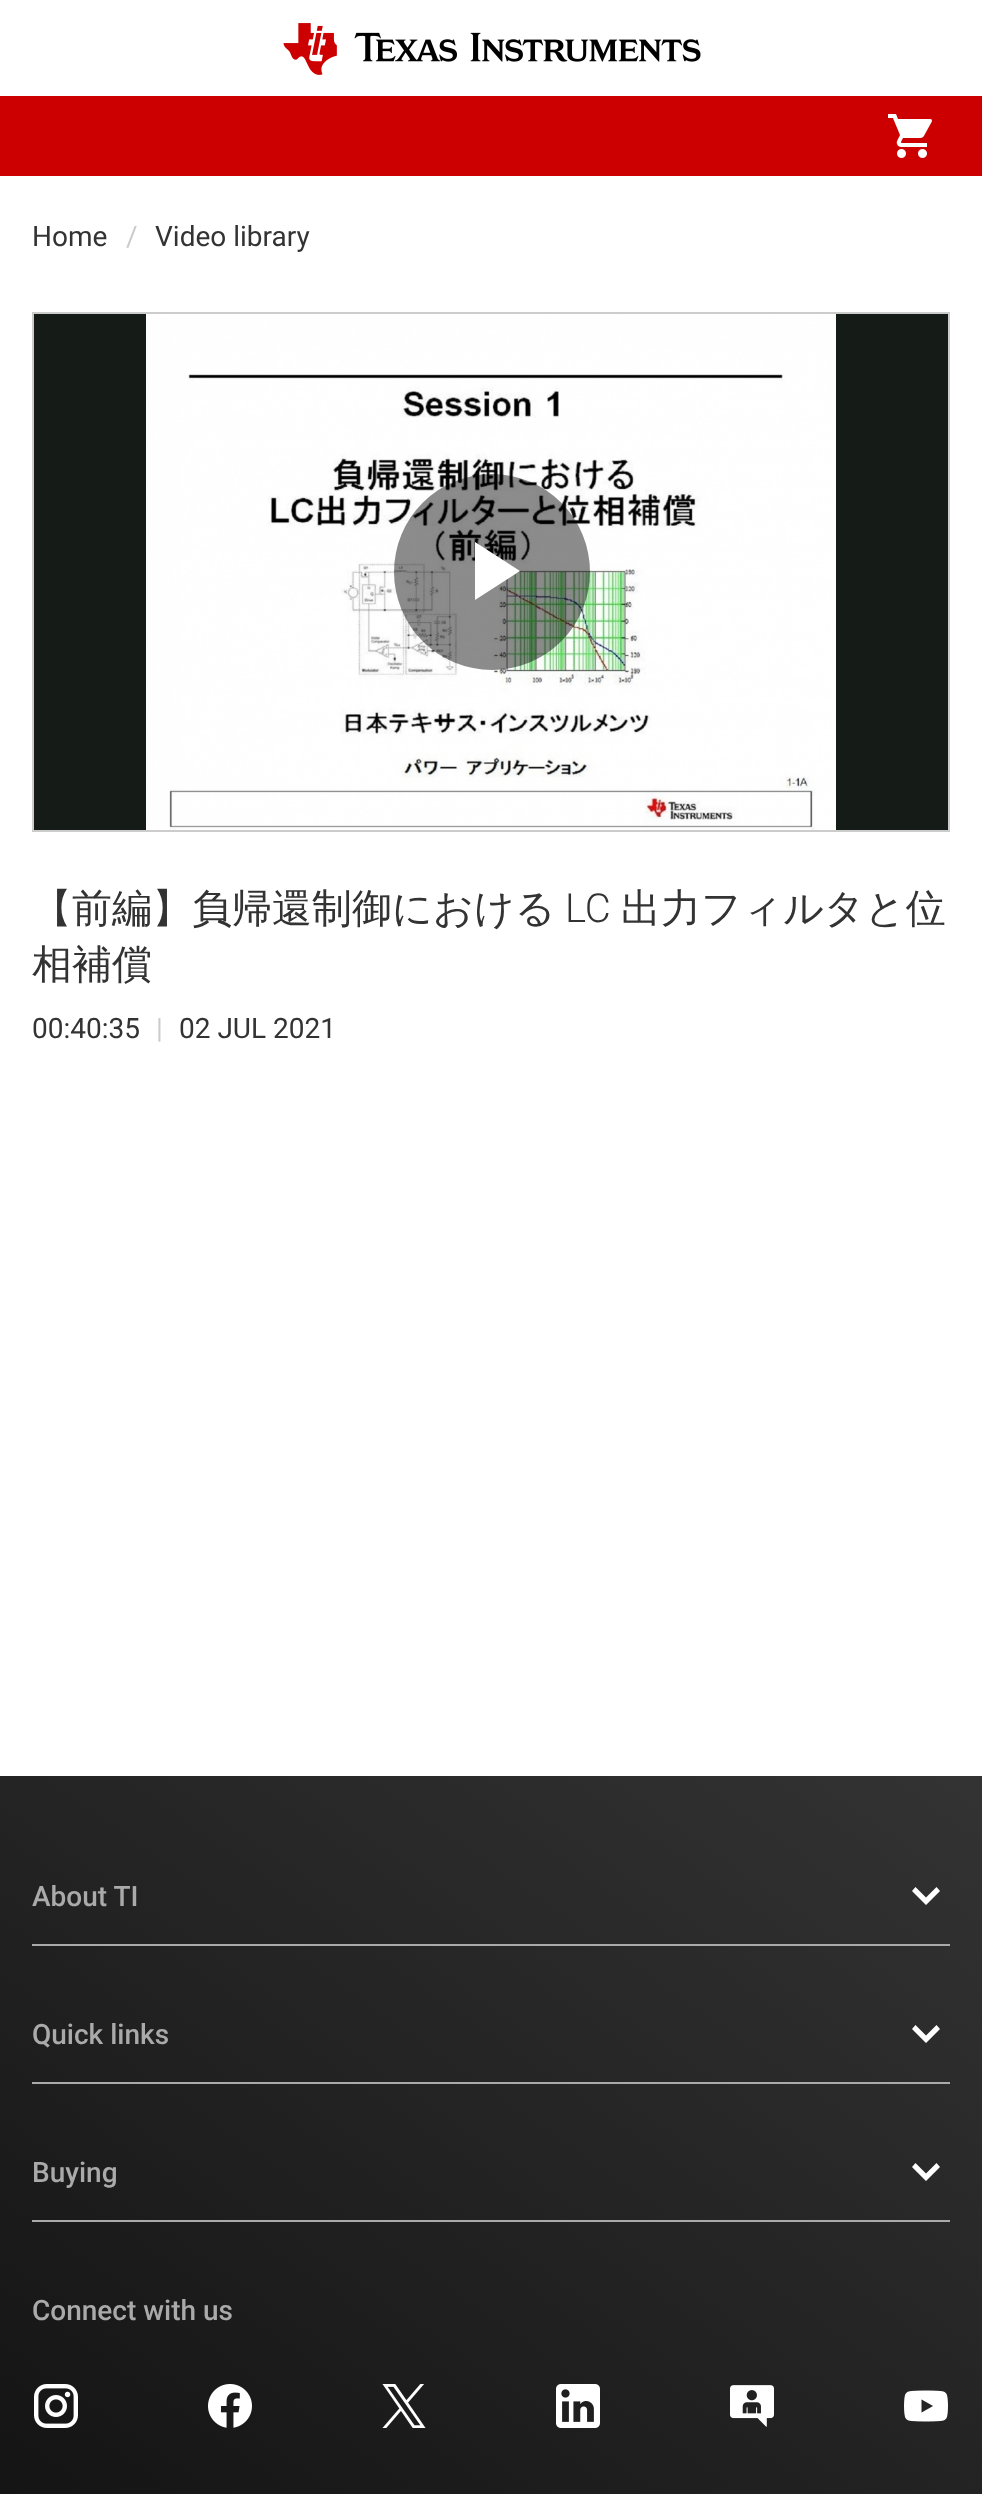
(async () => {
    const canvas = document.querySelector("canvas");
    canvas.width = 982;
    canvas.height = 2494;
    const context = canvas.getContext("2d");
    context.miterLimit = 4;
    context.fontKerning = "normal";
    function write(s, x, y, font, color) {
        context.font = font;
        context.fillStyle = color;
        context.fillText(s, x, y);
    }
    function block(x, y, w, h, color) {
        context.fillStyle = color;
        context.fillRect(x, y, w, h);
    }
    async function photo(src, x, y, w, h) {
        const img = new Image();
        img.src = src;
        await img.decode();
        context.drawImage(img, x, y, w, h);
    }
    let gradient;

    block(0, 0, 982, 2494, "rgb(255, 255, 255)");
    await photo("media/1.png", 283, 23, 418, 52);
    block(0, 96, 982, 80, "rgb(204, 0, 0)");
    await photo("media/2.png", 888, 114, 44, 44);
    write("Home", 32, 246, "28px Roboto", "rgb(51, 51, 51)");
    write("/", 126, 246, "28px Roboto", "rgb(204, 204, 204)");
    write("Video library", 155, 246, "28px Roboto", "rgb(51, 51, 51)");
    context.strokeStyle = "rgb(204, 204, 204)";
    context.lineWidth = 2;
    context.strokeRect(33, 313, 916, 518);
    block(34, 314, 914, 516, "rgb(21, 27, 23)");
    await photo("media/3.png", 146, 314, 690, 516);
    context.fillStyle = "rgba(0, 0, 0, 0.45)";
    context.beginPath();
    context.arc(492, 572, 98, 0, Math.PI * 2);
    context.fill();
    context.fillStyle = "rgb(255, 255, 255)";
    context.beginPath();
    context.moveTo(475, 542);
    context.lineTo(475, 600);
    context.lineTo(520, 571);
    context.closePath();
    context.fill();
    write("【前編】負帰還制御における", 32, 922, "500 40px WenQuanYi Zen Hei", "rgb(51, 51, 51)");
    write("LC", 565, 922, "300 40px Roboto", "rgb(51, 51, 51)");
    write("出力フィルタと位", 621, 922, "500 40px WenQuanYi Zen Hei", "rgb(51, 51, 51)");
    write("相補償", 32, 978, "500 40px WenQuanYi Zen Hei", "rgb(51, 51, 51)");
    write("00:40:35", 32, 1038, "28px Roboto", "rgb(51, 51, 51)");
    write("|", 156, 1038, "28px Roboto", "rgb(204, 204, 204)");
    write("02 JUL 2021", 179, 1038, "28px Roboto", "rgb(51, 51, 51)");
    gradient = context.createLinearGradient(-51, 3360, 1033, 1812);
    gradient.addColorStop(0, "rgb(0, 0, 0)");
    gradient.addColorStop(1, "rgb(51, 51, 51)");
    context.fillStyle = gradient;
    context.fillRect(0, 1776, 982, 718);
    block(32, 1944, 918, 2, "rgb(170, 170, 170)");
    write("About TI", 32, 1906, "500 28px Roboto", "rgb(170, 170, 170)");
    context.fillStyle = "rgb(255, 255, 255)";
    context.beginPath();
    context.moveTo(940, 1891);
    context.lineTo(926, 1905);
    context.lineTo(912, 1891);
    context.lineTo(915.5, 1887);
    context.lineTo(926, 1897.5);
    context.lineTo(936.5, 1887);
    context.closePath();
    context.fill();
    block(32, 2082, 918, 2, "rgb(170, 170, 170)");
    write("Quick links", 32, 2044, "500 28px Roboto", "rgb(170, 170, 170)");
    context.fillStyle = "rgb(255, 255, 255)";
    context.beginPath();
    context.moveTo(940, 2029);
    context.lineTo(926, 2043);
    context.lineTo(912, 2029);
    context.lineTo(915.5, 2025);
    context.lineTo(926, 2035.5);
    context.lineTo(936.5, 2025);
    context.closePath();
    context.fill();
    block(32, 2220, 918, 2, "rgb(170, 170, 170)");
    write("Buying", 32, 2182, "500 28px Roboto", "rgb(170, 170, 170)");
    context.fillStyle = "rgb(255, 255, 255)";
    context.beginPath();
    context.moveTo(940, 2167);
    context.lineTo(926, 2181);
    context.lineTo(912, 2167);
    context.lineTo(915.5, 2163);
    context.lineTo(926, 2173.5);
    context.lineTo(936.5, 2163);
    context.closePath();
    context.fill();
    write("Connect with us", 32, 2320, "500 28px Roboto", "rgb(170, 170, 170)");
    await photo("media/4.png", 34, 2384, 44, 44);
    await photo("media/5.png", 208, 2384, 44, 44);
    await photo("media/6.png", 382, 2384, 44, 44);
    await photo("media/7.png", 556, 2384, 44, 44);
    await photo("media/8.png", 730, 2385, 44, 42);
    await photo("media/9.png", 904, 2390, 44, 32);
})();
